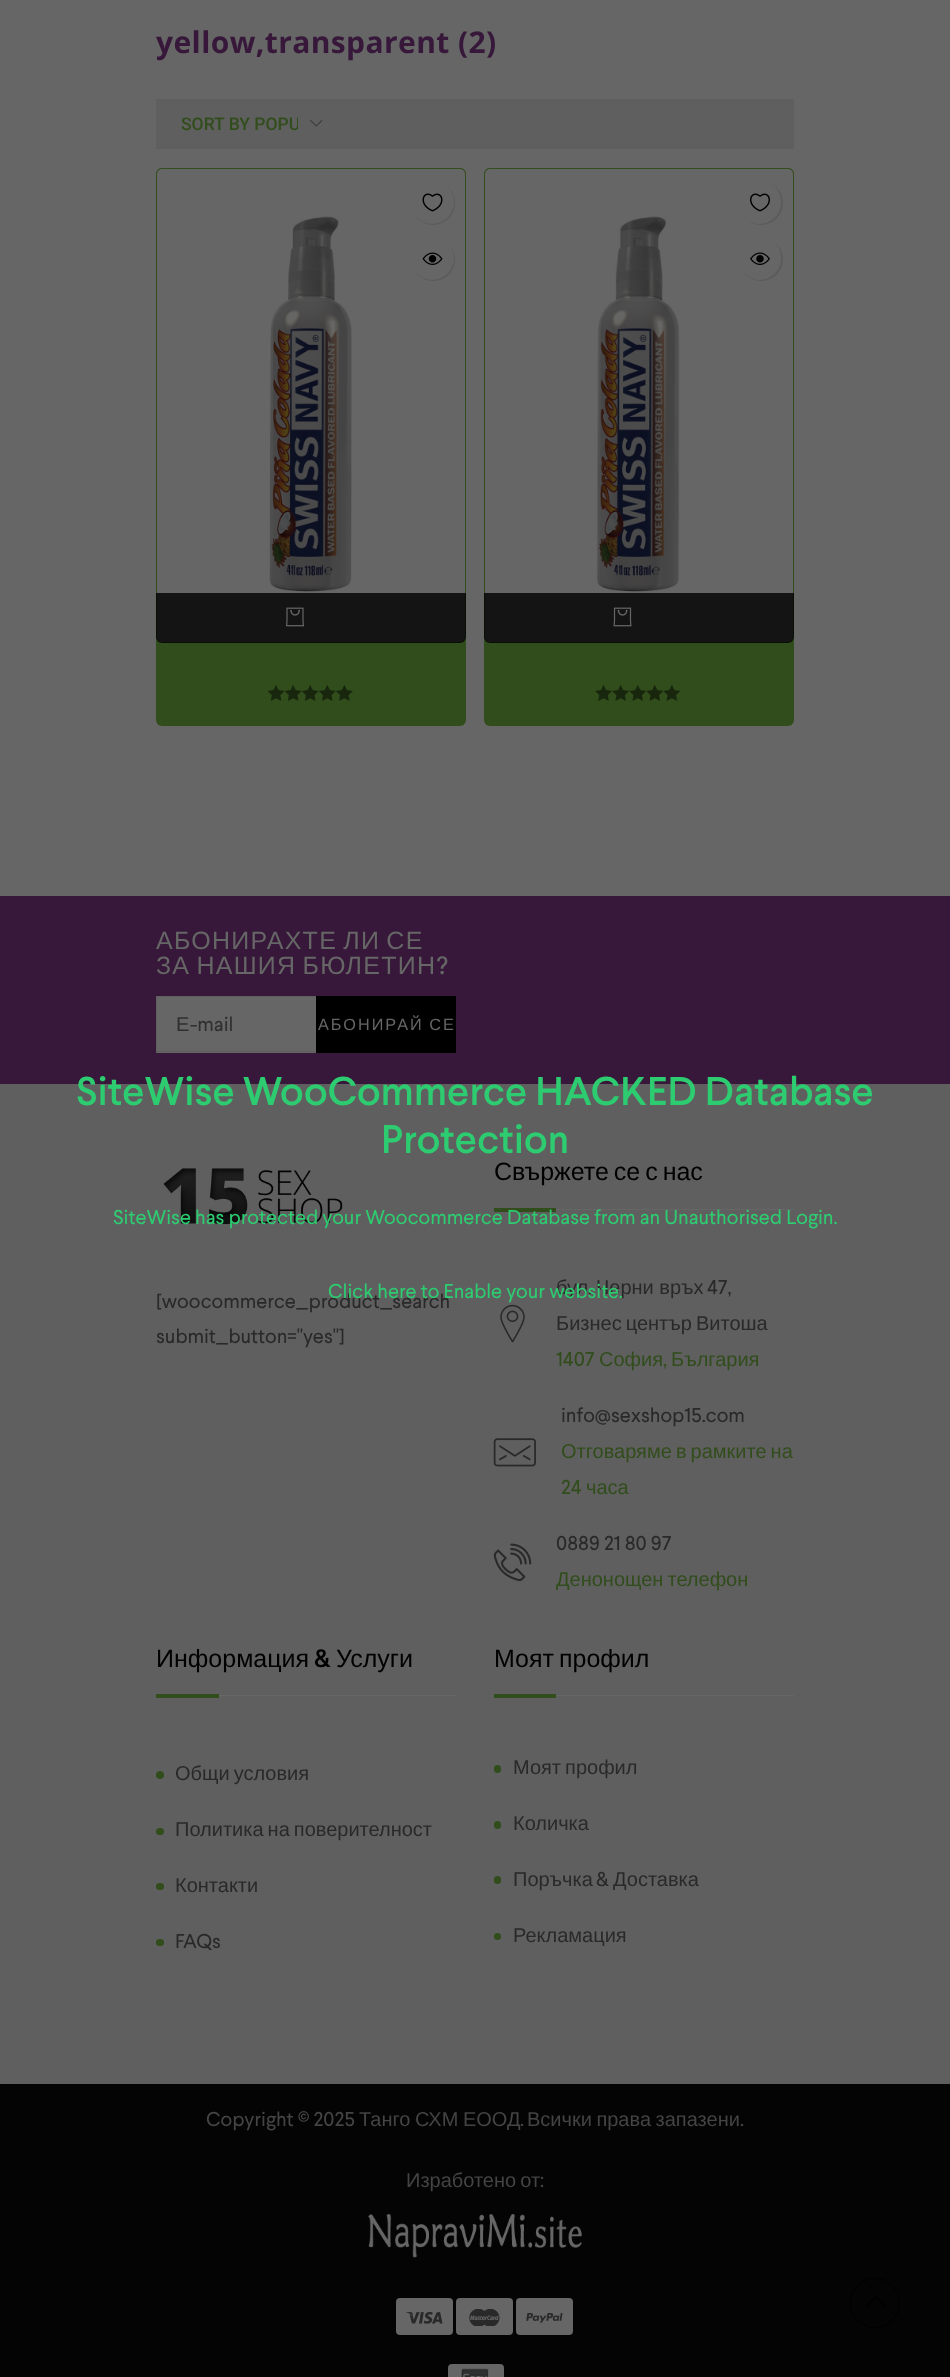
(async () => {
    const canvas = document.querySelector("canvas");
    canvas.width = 950;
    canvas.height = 2377;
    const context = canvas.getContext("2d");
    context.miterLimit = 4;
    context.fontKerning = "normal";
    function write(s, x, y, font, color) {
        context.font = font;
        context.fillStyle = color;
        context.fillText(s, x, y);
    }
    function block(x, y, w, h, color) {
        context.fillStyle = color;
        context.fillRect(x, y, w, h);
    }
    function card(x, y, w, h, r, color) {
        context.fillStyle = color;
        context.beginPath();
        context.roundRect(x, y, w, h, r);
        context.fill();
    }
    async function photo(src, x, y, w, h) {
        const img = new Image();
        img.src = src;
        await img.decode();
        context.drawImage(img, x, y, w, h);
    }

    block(0, 0, 950, 2377, "rgb(102, 102, 102)");
    context.letterSpacing = "0.4px";
    write("yellow,transparent (2)", 156, 53, "bold 30px Open Sans", "rgb(55, 24, 58)");
    block(156, 99, 638, 50, "rgb(95, 95, 95)");
    context.save();
    context.beginPath();
    context.rect(181, 114, 117, 20);
    context.clip();
    context.letterSpacing = "0px";
    write("SORT BY POPU", 181, 130, "500 17.5px Roboto", "rgb(49, 77, 27)");
    context.restore();
    await photo("media/1.png", 310, 120, 13, 7);
    card(156, 168, 310, 558, 6, "rgb(49, 77, 27)");
    context.fillStyle = "rgb(102, 102, 102)";
    context.beginPath();
    context.roundRect(156.5, 168.5, 309, 474, 5.5);
    context.fill();
    context.strokeStyle = "rgb(49, 77, 27)";
    context.stroke();
    await photo("media/2.png", 269, 216, 83, 376);
    context.fillStyle = "rgba(0, 0, 0, 0.1)";
    context.filter = "blur(0.5px)";
    context.beginPath();
    context.roundRect(411, 181, 44, 44, 22);
    context.fill();
    context.filter = "none";
    context.fillStyle = "rgb(102, 102, 102)";
    context.beginPath();
    context.arc(432, 202, 22, 0, Math.PI * 2);
    context.fill();
    await photo("media/3.png", 422, 193, 21, 19);
    context.fillStyle = "rgba(0, 0, 0, 0.1)";
    context.filter = "blur(0.5px)";
    context.beginPath();
    context.roundRect(411, 238, 44, 43, 21.5);
    context.fill();
    context.filter = "none";
    context.fillStyle = "rgb(102, 102, 102)";
    context.beginPath();
    context.arc(432, 258, 22, 0, Math.PI * 2);
    context.fill();
    await photo("media/4.png", 422, 252, 21, 13);
    context.fillStyle = "rgba(0, 0, 0, 0.8)";
    context.beginPath();
    context.roundRect(156, 593, 310, 50, [0, 0, 6, 6]);
    context.fill();
    await photo("media/5.png", 286, 607, 18, 20);
    await photo("media/6.png", 268, 685, 85, 16);
    card(484, 168, 310, 558, 6, "rgb(49, 77, 27)");
    context.fillStyle = "rgb(102, 102, 102)";
    context.beginPath();
    context.roundRect(484.5, 168.5, 309, 474, 5.5);
    context.fill();
    context.stroke();
    await photo("media/7.png", 596, 216, 84, 376);
    context.fillStyle = "rgba(0, 0, 0, 0.1)";
    context.filter = "blur(0.5px)";
    context.beginPath();
    context.roundRect(739, 181, 44, 44, 22);
    context.fill();
    context.filter = "none";
    card(738, 180, 43, 44, 21.5, "rgb(102, 102, 102)");
    await photo("media/8.png", 750, 193, 20, 19);
    context.fillStyle = "rgba(0, 0, 0, 0.1)";
    context.filter = "blur(0.5px)";
    context.beginPath();
    context.roundRect(739, 238, 44, 43, 21.5);
    context.fill();
    context.filter = "none";
    card(738, 236, 43, 44, 21.5, "rgb(102, 102, 102)");
    await photo("media/9.png", 750, 252, 20, 13);
    context.fillStyle = "rgba(0, 0, 0, 0.8)";
    context.beginPath();
    context.roundRect(484, 593, 310, 50, [0, 0, 6, 6]);
    context.fill();
    await photo("media/10.png", 613, 607, 19, 20);
    await photo("media/11.png", 595, 685, 86, 16);
    block(0, 896, 950, 188, "rgb(55, 24, 58)");
    context.letterSpacing = "1.25px";
    context.wordSpacing = "-2px";
    write("АБОНИРАХТЕ ЛИ СЕ", 156, 949, "25px Liberation Sans", "rgb(102, 102, 102)");
    write("ЗА НАШИЯ БЮЛЕТИН", 156, 974, "25px Liberation Sans", "rgb(102, 102, 102)");
    context.wordSpacing = "0px";
    write("?", 437, 974, "500 25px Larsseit", "rgb(102, 102, 102)");
    block(157, 997, 159, 56, "rgb(102, 102, 102)");
    block(156, 996, 160, 1, "rgb(94, 94, 94)");
    block(156, 1051, 160, 1, "rgb(94, 94, 94)");
    block(156, 996, 1, 57, "rgb(94, 94, 94)");
    context.letterSpacing = "0px";
    write("Е", 176, 1031, "20px Liberation Sans", "rgb(47, 47, 47)");
    write("-mail", 190, 1031, "20px Larsseit", "rgb(47, 47, 47)");
    block(316, 996, 140, 57, "rgb(0, 0, 0)");
    context.letterSpacing = "2px";
    context.wordSpacing = "-1px";
    write("АБОНИРАЙ СЕ", 318, 1030, "16.25px Liberation Sans", "rgb(102, 102, 102)");
    block(0, 1084, 950, 1000, "rgb(95, 95, 95)");
    await photo("media/12.png", 163, 1168, 180, 57);
    context.letterSpacing = "0px";
    context.wordSpacing = "0px";
    write("[woocommerce_product_search", 156, 1308, "20px Larsseit", "rgb(41, 41, 41)");
    write("submit_button=\"yes\"]", 156, 1343, "20px Larsseit", "rgb(41, 41, 41)");
    block(556, 1209, 238, 1, "rgb(102, 102, 102)");
    context.wordSpacing = "-2px";
    write("Свържете се с нас", 494, 1180, "25px Liberation Sans", "rgb(0, 0, 0)");
    block(494, 1208, 62, 4, "rgb(49, 77, 27)");
    await photo("media/13.png", 500, 1304, 25, 39);
    context.wordSpacing = "0px";
    write("бул", 556, 1294, "20px Liberation Sans", "rgb(41, 41, 41)");
    write(".", 588, 1294, "20px Larsseit", "rgb(41, 41, 41)");
    write("Черни връх", 596, 1294, "20px Liberation Sans", "rgb(41, 41, 41)");
    write("47,", 707, 1294, "20px Larsseit", "rgb(41, 41, 41)");
    context.wordSpacing = "-1.5px";
    write("Бизнес център Витоша", 556, 1330, "20px Liberation Sans", "rgb(41, 41, 41)");
    context.wordSpacing = "0px";
    write("1407", 556, 1366, "20px Larsseit", "rgb(49, 77, 27)");
    write("София", 599, 1366, "20px Liberation Sans", "rgb(49, 77, 27)");
    write(",", 663, 1366, "20px Larsseit", "rgb(49, 77, 27)");
    write("България", 671, 1366, "20px Liberation Sans", "rgb(49, 77, 27)");
    await photo("media/14.png", 493, 1438, 43, 29);
    write("info@sexshop15.com", 561, 1422, "20px Larsseit", "rgb(41, 41, 41)");
    context.wordSpacing = "-1.5px";
    write("Отговаряме в рамките на", 561, 1458, "20px Liberation Sans", "rgb(49, 77, 27)");
    context.wordSpacing = "0px";
    write("24", 561, 1494, "20px Larsseit", "rgb(49, 77, 27)");
    write("часа", 586, 1494, "20px Liberation Sans", "rgb(49, 77, 27)");
    await photo("media/15.png", 493, 1543, 39, 39);
    write("0889 21 80 97", 556, 1550, "20px Larsseit", "rgb(41, 41, 41)");
    context.wordSpacing = "-1.5px";
    write("Денонощен телефон", 556, 1586, "20px Liberation Sans", "rgb(49, 77, 27)");
    block(219, 1695, 237, 1, "rgb(102, 102, 102)");
    context.wordSpacing = "0px";
    write("Информация", 156, 1667, "25px Liberation Sans", "rgb(0, 0, 0)");
    write("&", 314, 1667, "500 25px Larsseit", "rgb(0, 0, 0)");
    write("Услуги", 336, 1667, "25px Liberation Sans", "rgb(0, 0, 0)");
    block(156, 1694, 63, 4, "rgb(49, 77, 27)");
    context.beginPath();
    context.arc(160, 1775, 4, 0, Math.PI * 2);
    context.fill();
    context.wordSpacing = "-1.5px";
    write("Общи условия", 175, 1780, "20px Liberation Sans", "rgb(41, 41, 41)");
    card(156, 1828, 8, 7, 3.5, "rgb(49, 77, 27)");
    write("Политика на поверителност", 175, 1836, "20px Liberation Sans", "rgb(41, 41, 41)");
    card(156, 1883, 8, 7, 3.5, "rgb(49, 77, 27)");
    context.wordSpacing = "0px";
    write("Контакти", 175, 1892, "20px Liberation Sans", "rgb(41, 41, 41)");
    card(156, 1939, 8, 7, 3.5, "rgb(49, 77, 27)");
    write("FAQs", 175, 1948, "20px Larsseit", "rgb(41, 41, 41)");
    block(556, 1695, 238, 1, "rgb(102, 102, 102)");
    context.wordSpacing = "-2px";
    write("Моят профил", 494, 1667, "25px Liberation Sans", "rgb(0, 0, 0)");
    block(494, 1694, 62, 4, "rgb(49, 77, 27)");
    card(494, 1765, 7, 8, 3.5, "rgb(49, 77, 27)");
    context.wordSpacing = "-1.5px";
    write("Моят профил", 513, 1774, "20px Liberation Sans", "rgb(41, 41, 41)");
    card(494, 1821, 7, 8, 3.5, "rgb(49, 77, 27)");
    context.wordSpacing = "0px";
    write("Количка", 513, 1830, "20px Liberation Sans", "rgb(41, 41, 41)");
    card(494, 1876, 7, 8, 3.5, "rgb(49, 77, 27)");
    write("Поръчка", 513, 1886, "20px Liberation Sans", "rgb(41, 41, 41)");
    write("&", 596, 1886, "20px Larsseit", "rgb(41, 41, 41)");
    write("Доставка", 613, 1886, "20px Liberation Sans", "rgb(41, 41, 41)");
    context.fillStyle = "rgb(49, 77, 27)";
    context.beginPath();
    context.arc(497.5, 1936.5, 3.5, 0, Math.PI * 2);
    context.fill();
    write("Рекламация", 513, 1942, "20px Liberation Sans", "rgb(41, 41, 41)");
    block(0, 2084, 950, 293, "rgb(4, 4, 4)");
    write("Copyright © 2025", 206, 2126, "20px Larsseit", "rgb(68, 68, 68)");
    context.wordSpacing = "-1px";
    write("Танго СХМ ЕООД", 359, 2126, "20px Liberation Sans", "rgb(68, 68, 68)");
    context.wordSpacing = "0px";
    write(".", 520, 2126, "20px Larsseit", "rgb(68, 68, 68)");
    context.wordSpacing = "-1px";
    write("Всички права запазени", 527, 2126, "20px Liberation Sans", "rgb(68, 68, 68)");
    context.wordSpacing = "0px";
    write(".", 740, 2126, "20px Larsseit", "rgb(68, 68, 68)");
    context.wordSpacing = "-1.5px";
    write("Изработено от", 406, 2187, "20px Liberation Sans", "rgb(68, 68, 68)");
    context.wordSpacing = "0px";
    write(":", 540, 2187, "20px Larsseit", "rgb(68, 68, 68)");
    await photo("media/16.png", 368, 2214, 214, 44);
    card(396, 2298, 57, 37, 4, "rgb(102, 102, 102)");
    await photo("media/17.png", 406, 2312, 37, 12);
    card(456, 2298, 57, 37, 4, "rgb(102, 102, 102)");
    await photo("media/18.png", 469, 2309, 31, 17);
    card(516, 2298, 57, 37, 4, "rgb(102, 102, 102)");
    await photo("media/19.png", 526, 2313, 37, 10);
    card(448, 2364, 56, 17, 4, "rgb(102, 102, 102)");
    await photo("media/20.png", 461, 2368, 28, 9);
    write("SiteWise WooCommerce HACKED Database", 76, 1105, "500 40px Larsseit", "rgb(46, 204, 113)");
    write("Protection", 381, 1153, "500 40px Larsseit", "rgb(46, 204, 113)");
    write("SiteWise has protected your Woocommerce Database from an Unauthorised Login.", 113, 1224, "20px Larsseit", "rgb(46, 204, 113)");
    write("Click here to Enable your website.", 328, 1298, "20px Larsseit", "rgb(46, 204, 113)");
    context.beginPath();
    context.arc(875, 2303, 24.5, 0, Math.PI * 2);
    context.strokeStyle = "rgb(0, 0, 0)";
    context.stroke();
    context.fillStyle = "rgb(0, 0, 0)";
    context.beginPath();
    context.moveTo(865, 2306);
    context.lineTo(875.5, 2295.5);
    context.lineTo(886, 2306);
    context.lineTo(885, 2307);
    context.lineTo(875.5, 2297.5);
    context.lineTo(866, 2307);
    context.closePath();
    context.fill();
})();
